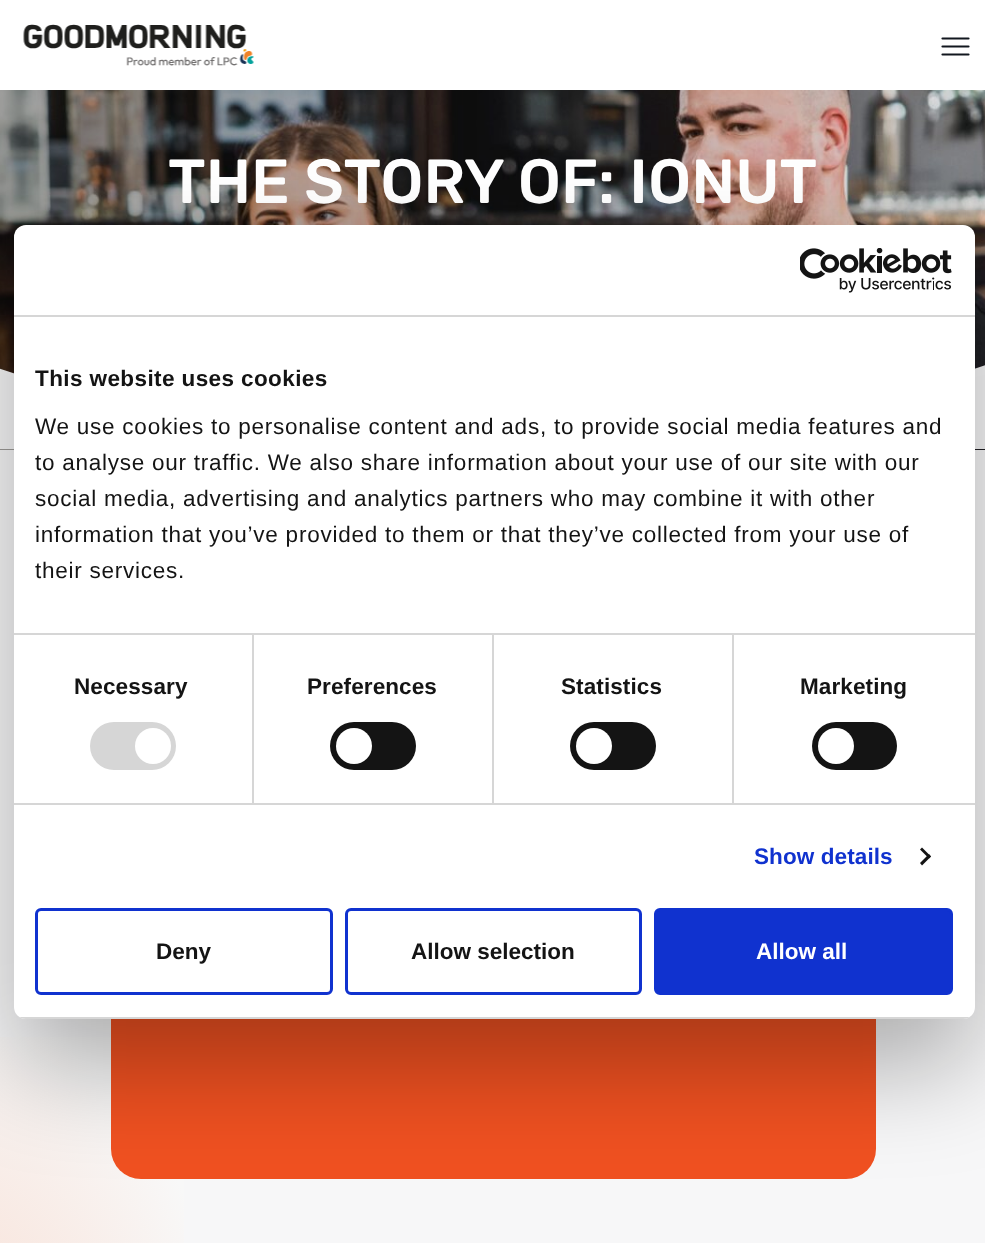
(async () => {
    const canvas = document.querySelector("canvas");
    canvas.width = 985;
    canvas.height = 1243;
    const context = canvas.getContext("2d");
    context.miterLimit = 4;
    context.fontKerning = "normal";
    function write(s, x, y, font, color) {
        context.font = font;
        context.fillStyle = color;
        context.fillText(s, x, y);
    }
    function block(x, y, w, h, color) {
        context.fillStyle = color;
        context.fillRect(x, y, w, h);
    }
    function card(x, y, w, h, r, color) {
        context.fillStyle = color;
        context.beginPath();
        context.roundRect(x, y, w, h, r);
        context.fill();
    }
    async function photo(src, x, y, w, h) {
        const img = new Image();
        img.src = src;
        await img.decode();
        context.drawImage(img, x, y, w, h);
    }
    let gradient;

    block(0, 0, 985, 1243, "rgb(247, 247, 248)");
    block(0, 0, 985, 90, "rgb(255, 255, 255)");
    await photo("media/1.png", 23, 24, 231, 42);
    context.beginPath();
    context.moveTo(942.5, 46.5);
    context.lineTo(968.5, 46.5);
    context.moveTo(942.5, 54.5);
    context.lineTo(968.5, 54.5);
    context.moveTo(942.5, 38.5);
    context.lineTo(968.5, 38.5);
    context.strokeStyle = "rgb(18, 23, 31)";
    context.lineWidth = 2.2;
    context.lineCap = "round";
    context.lineJoin = "round";
    context.stroke();
    await photo("media/2.png", 0, 90, 985, 360);
    write("THE STORY OF: IONUT", 168, 203, "300 62.25px Rubik", "rgb(255, 255, 255)");
    context.fillStyle = "rgb(247, 247, 248)";
    context.beginPath();
    context.moveTo(-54, 349);
    context.lineTo(-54, 449);
    context.lineTo(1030, 449);
    context.lineTo(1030, 349);
    context.bezierCurveTo(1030, 349, 502, 567, -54, 349);
    context.closePath();
    context.fill();
    gradient = context.createRadialGradient(-68, 1017.22, 0, -68, 1017.22, 599);
    gradient.addColorStop(0, "rgb(249, 218, 205)");
    gradient.addColorStop(0.5, "rgb(248, 248, 248)");
    gradient.addColorStop(1, "rgb(248, 248, 248)");
    context.fillStyle = gradient;
    context.beginPath();
    context.rect(0, 1037, 184, 206);
    context.save();
    context.clip();
    context.scale(1, 835 / 599);
    context.fillRect(0, 0, 985, 892);
    context.restore();
    await photo("media/4.png", 111, 1019, 765, 160);
    context.fillStyle = "rgba(0, 0, 0, 0.3)";
    context.filter = "blur(51px)";
    context.beginPath();
    context.roundRect(14, 273, 961, 794, 12);
    context.fill();
    context.filter = "none";
    card(14, 225, 961, 794, 12, "rgb(255, 255, 255)");
    block(14, 315, 961, 2, "rgb(214, 214, 214)");
    await photo("media/3.png", 800, 248, 152, 45);
    block(14, 633, 961, 2, "rgb(214, 214, 214)");
    context.letterSpacing = "0.4px";
    write("This website uses cookies", 35, 386, "bold 22.5px Liberation Sans", "rgb(20, 20, 20)");
    context.letterSpacing = "0.75px";
    write("We use cookies to personalise content and ads, to provide social media features and", 35, 434, "22.5px Liberation Sans", "rgb(20, 20, 20)");
    write("to analyse our traffic. We also share information about your use of our site with our", 35, 470, "22.5px Liberation Sans", "rgb(20, 20, 20)");
    write("social media, advertising and analytics partners who may combine it with other", 35, 506, "22.5px Liberation Sans", "rgb(20, 20, 20)");
    write("information that you’ve provided to them or that they’ve collected from your use of", 35, 542, "22.5px Liberation Sans", "rgb(20, 20, 20)");
    write("their services.", 35, 578, "22.5px Liberation Sans", "rgb(20, 20, 20)");
    block(14, 803, 961, 2, "rgb(214, 214, 214)");
    block(252, 635, 2, 168, "rgb(214, 214, 214)");
    context.letterSpacing = "0.1px";
    write("Necessary", 74, 694, "bold 22.5px Liberation Sans", "rgb(20, 20, 20)");
    card(90, 722, 86, 48, 24, "rgb(214, 214, 214)");
    context.fillStyle = "rgb(255, 255, 255)";
    context.beginPath();
    context.arc(153, 746, 18, 0, Math.PI * 2);
    context.fill();
    block(492, 635, 2, 168, "rgb(214, 214, 214)");
    write("Preferences", 307, 694, "bold 22.5px Liberation Sans", "rgb(20, 20, 20)");
    card(330, 722, 86, 48, 24, "rgb(20, 20, 20)");
    context.fillStyle = "rgb(255, 255, 255)";
    context.beginPath();
    context.arc(354, 746, 18, 0, Math.PI * 2);
    context.fill();
    block(732, 635, 2, 168, "rgb(214, 214, 214)");
    write("Statistics", 561, 694, "bold 22.5px Liberation Sans", "rgb(20, 20, 20)");
    card(570, 722, 86, 48, 24, "rgb(20, 20, 20)");
    context.fillStyle = "rgb(255, 255, 255)";
    context.beginPath();
    context.arc(594, 746, 18, 0, Math.PI * 2);
    context.fill();
    write("Marketing", 800, 694, "bold 22.5px Liberation Sans", "rgb(20, 20, 20)");
    card(812, 722, 85, 48, 24, "rgb(20, 20, 20)");
    context.fillStyle = "rgb(255, 255, 255)";
    context.beginPath();
    context.arc(836, 746, 18, 0, Math.PI * 2);
    context.fill();
    write("Show details", 754, 864, "bold 22.5px Liberation Sans", "rgb(16, 50, 207)");
    context.fillStyle = "rgb(20, 20, 20)";
    context.beginPath();
    context.moveTo(922, 847.5);
    context.lineTo(931, 856.5);
    context.lineTo(929, 858.5);
    context.lineTo(920, 849.5);
    context.closePath();
    context.fill();
    context.beginPath();
    context.moveTo(929, 854);
    context.lineTo(931, 856.5);
    context.lineTo(922, 865.5);
    context.lineTo(920, 863);
    context.closePath();
    context.fill();
    context.save();
    context.beginPath();
    context.roundRect(14, 225, 961, 794, 12);
    context.clip();
    block(14, 1017, 961, 2, "rgb(214, 214, 214)");
    context.restore();
    context.beginPath();
    context.roundRect(36.5, 909.5, 295, 84, 4.5);
    context.strokeStyle = "rgb(16, 50, 207)";
    context.lineWidth = 3;
    context.lineJoin = "miter";
    context.stroke();
    context.letterSpacing = "0px";
    write("Deny", 156, 959, "bold 22.5px Liberation Sans", "rgb(20, 20, 20)");
    context.beginPath();
    context.roundRect(346.5, 909.5, 294, 84, 4.5);
    context.stroke();
    write("Allow selection", 411, 959, "bold 22.5px Liberation Sans", "rgb(20, 20, 20)");
    context.fillStyle = "rgb(16, 50, 207)";
    context.beginPath();
    context.roundRect(655.5, 909.5, 296, 84, 4.5);
    context.fill();
    context.stroke();
    write("Allow all", 756, 959, "bold 22.5px Liberation Sans", "rgb(255, 255, 255)");
})();
